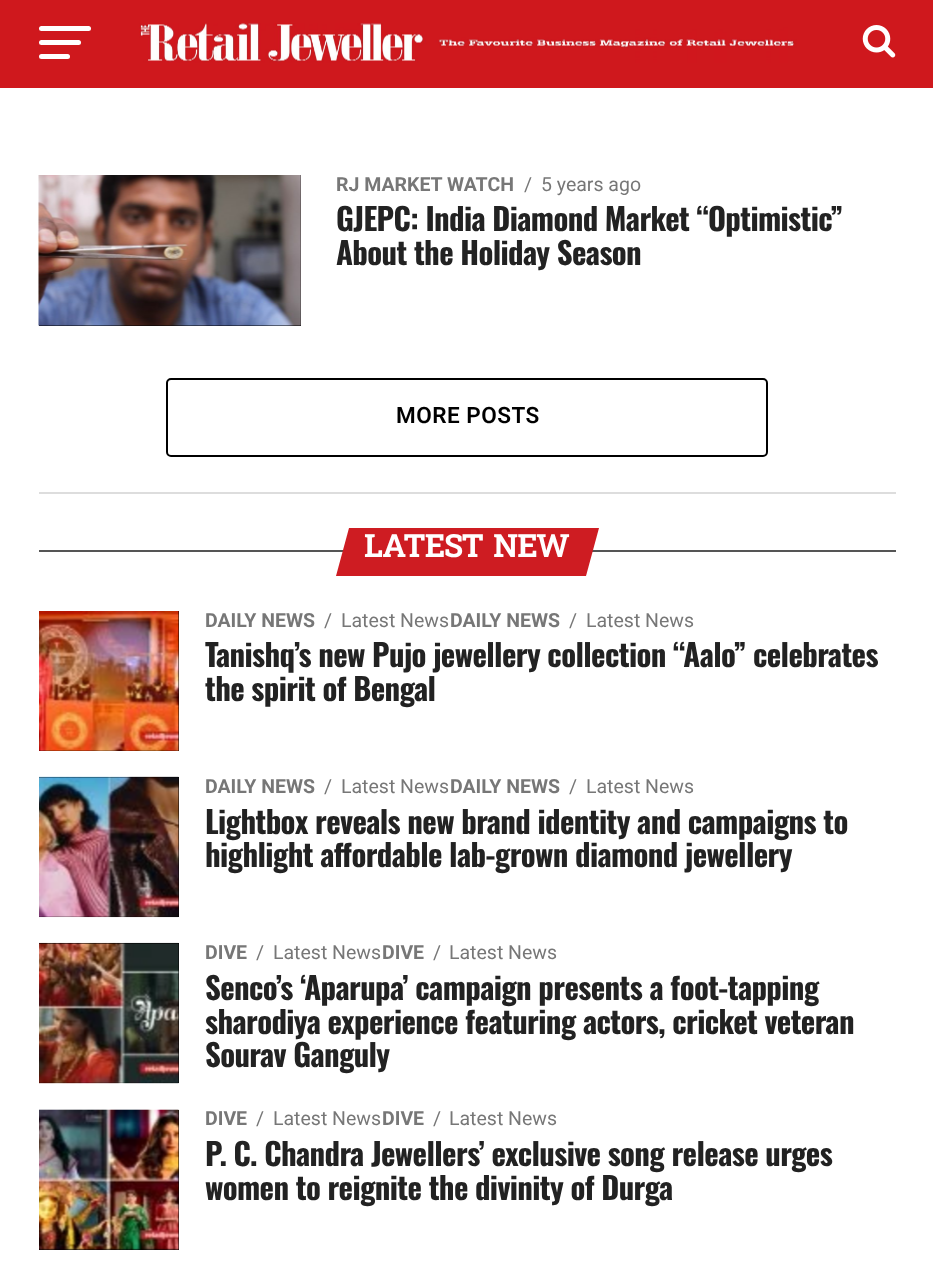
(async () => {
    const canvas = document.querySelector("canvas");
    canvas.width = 933;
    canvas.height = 1261;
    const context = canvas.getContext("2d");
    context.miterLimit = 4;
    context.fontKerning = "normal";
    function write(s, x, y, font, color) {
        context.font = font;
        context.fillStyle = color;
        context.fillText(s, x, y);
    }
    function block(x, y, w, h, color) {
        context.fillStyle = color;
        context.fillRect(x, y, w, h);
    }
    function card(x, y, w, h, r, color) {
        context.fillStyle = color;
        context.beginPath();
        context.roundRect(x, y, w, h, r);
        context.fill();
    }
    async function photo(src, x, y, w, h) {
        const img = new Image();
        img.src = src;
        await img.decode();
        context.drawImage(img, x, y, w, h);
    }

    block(0, 0, 933, 1261, "rgb(255, 255, 255)");
    block(0, 0, 933, 88, "rgb(207, 24, 29)");
    card(39, 26, 52, 5, 2.5, "rgb(255, 255, 255)");
    card(39, 40, 42, 5, 2.5, "rgb(255, 255, 255)");
    card(39, 54, 31, 5, 2.5, "rgb(255, 255, 255)");
    await photo("media/1.png", 139, 23, 658, 40);
    await photo("media/2.png", 862, 25, 34, 33);
    block(39, 175, 262, 151, "rgb(0, 0, 0)");
    await photo("media/3.png", 38, 175, 263, 151);
    write("RJ MARKET WATCH", 336, 191, "bold 19.5px Roboto", "rgb(119, 119, 119)");
    write("/", 524, 191, "19.5px Roboto", "rgb(119, 119, 119)");
    write("5 years ago", 541, 191, "19.5px Roboto", "rgb(119, 119, 119)");
    context.letterSpacing = "-0.62px";
    write("GJEPC: India Diamond Market “Optimistic”", 336, 231, "bold 30.8px Oswald", "rgb(34, 34, 34)");
    write("About the Holiday Season", 336, 265, "bold 30.8px Oswald", "rgb(34, 34, 34)");
    context.beginPath();
    context.roundRect(167, 379, 600, 77, 4);
    context.strokeStyle = "rgb(0, 0, 0)";
    context.lineWidth = 2;
    context.stroke();
    context.letterSpacing = "0.5px";
    write("MORE POSTS", 396, 423, "600 22.5px Roboto", "rgb(0, 0, 0)");
    block(39, 492, 857, 2, "rgb(221, 221, 221)");
    block(39, 550, 857, 2, "rgb(85, 85, 85)");
    context.fillStyle = "rgb(206, 28, 34)";
    context.beginPath();
    context.moveTo(349, 528);
    context.lineTo(599, 528);
    context.lineTo(586, 576);
    context.lineTo(336, 576);
    context.closePath();
    context.fill();
    context.letterSpacing = "-0.75px";
    write("LATEST NEW", 364, 557, "bold 32px Hanuman", "rgb(255, 255, 255)");
    block(39, 611, 140, 140, "rgb(0, 0, 0)");
    await photo("media/4.png", 39, 611, 140, 140);
    context.letterSpacing = "0px";
    write("DAILY NEWS", 205, 627, "bold 19.5px Roboto", "rgb(119, 119, 119)");
    write("/", 324, 627, "19.5px Roboto", "rgb(119, 119, 119)");
    write("Latest News", 341, 627, "19.5px Roboto", "rgb(119, 119, 119)");
    write("DAILY NEWS", 450, 627, "bold 19.5px Roboto", "rgb(119, 119, 119)");
    write("/", 569, 627, "19.5px Roboto", "rgb(119, 119, 119)");
    write("Latest News", 586, 627, "19.5px Roboto", "rgb(119, 119, 119)");
    context.letterSpacing = "-0.62px";
    write("Tanishq’s new Pujo jewellery collection “Aalo” celebrates", 205, 667, "bold 30.8px Oswald", "rgb(34, 34, 34)");
    write("the spirit of Bengal", 205, 701, "bold 30.8px Oswald", "rgb(34, 34, 34)");
    block(39, 777, 140, 140, "rgb(0, 0, 0)");
    await photo("media/5.png", 39, 776, 140, 142);
    context.letterSpacing = "0px";
    write("DAILY NEWS", 205, 793, "bold 19.5px Roboto", "rgb(119, 119, 119)");
    write("/", 324, 793, "19.5px Roboto", "rgb(119, 119, 119)");
    write("Latest News", 341, 793, "19.5px Roboto", "rgb(119, 119, 119)");
    write("DAILY NEWS", 450, 793, "bold 19.5px Roboto", "rgb(119, 119, 119)");
    write("/", 569, 793, "19.5px Roboto", "rgb(119, 119, 119)");
    write("Latest News", 586, 793, "19.5px Roboto", "rgb(119, 119, 119)");
    context.letterSpacing = "-0.62px";
    write("Lightbox reveals new brand identity and campaigns to", 205, 834, "bold 30.8px Oswald", "rgb(34, 34, 34)");
    write("highlight affordable lab-grown diamond jewellery", 205, 867, "bold 30.8px Oswald", "rgb(34, 34, 34)");
    block(39, 943, 140, 140, "rgb(0, 0, 0)");
    await photo("media/6.png", 39, 942, 140, 142);
    context.letterSpacing = "0px";
    write("DIVE", 205, 959, "bold 19.5px Roboto", "rgb(119, 119, 119)");
    write("/", 256, 959, "19.5px Roboto", "rgb(119, 119, 119)");
    write("Latest News", 273, 959, "19.5px Roboto", "rgb(119, 119, 119)");
    write("DIVE", 382, 959, "bold 19.5px Roboto", "rgb(119, 119, 119)");
    write("/", 433, 959, "19.5px Roboto", "rgb(119, 119, 119)");
    write("Latest News", 449, 959, "19.5px Roboto", "rgb(119, 119, 119)");
    context.letterSpacing = "-0.62px";
    write("Senco’s ‘Aparupa’ campaign presents a foot-tapping", 205, 1000, "bold 30.8px Oswald", "rgb(34, 34, 34)");
    write("sharodiya experience featuring actors, cricket veteran", 205, 1034, "bold 30.8px Oswald", "rgb(34, 34, 34)");
    write("Sourav Ganguly", 205, 1067, "bold 30.8px Oswald", "rgb(34, 34, 34)");
    block(39, 1110, 140, 140, "rgb(0, 0, 0)");
    await photo("media/7.png", 39, 1109, 140, 141);
    context.letterSpacing = "0px";
    write("DIVE", 205, 1125, "bold 19.5px Roboto", "rgb(119, 119, 119)");
    write("/", 256, 1125, "19.5px Roboto", "rgb(119, 119, 119)");
    write("Latest News", 273, 1125, "19.5px Roboto", "rgb(119, 119, 119)");
    write("DIVE", 382, 1125, "bold 19.5px Roboto", "rgb(119, 119, 119)");
    write("/", 433, 1125, "19.5px Roboto", "rgb(119, 119, 119)");
    write("Latest News", 449, 1125, "19.5px Roboto", "rgb(119, 119, 119)");
    context.letterSpacing = "-0.62px";
    write("P. C. Chandra Jewellers’ exclusive song release urges", 205, 1166, "bold 30.8px Oswald", "rgb(34, 34, 34)");
    write("women to reignite the divinity of Durga", 205, 1200, "bold 30.8px Oswald", "rgb(34, 34, 34)");
})();
